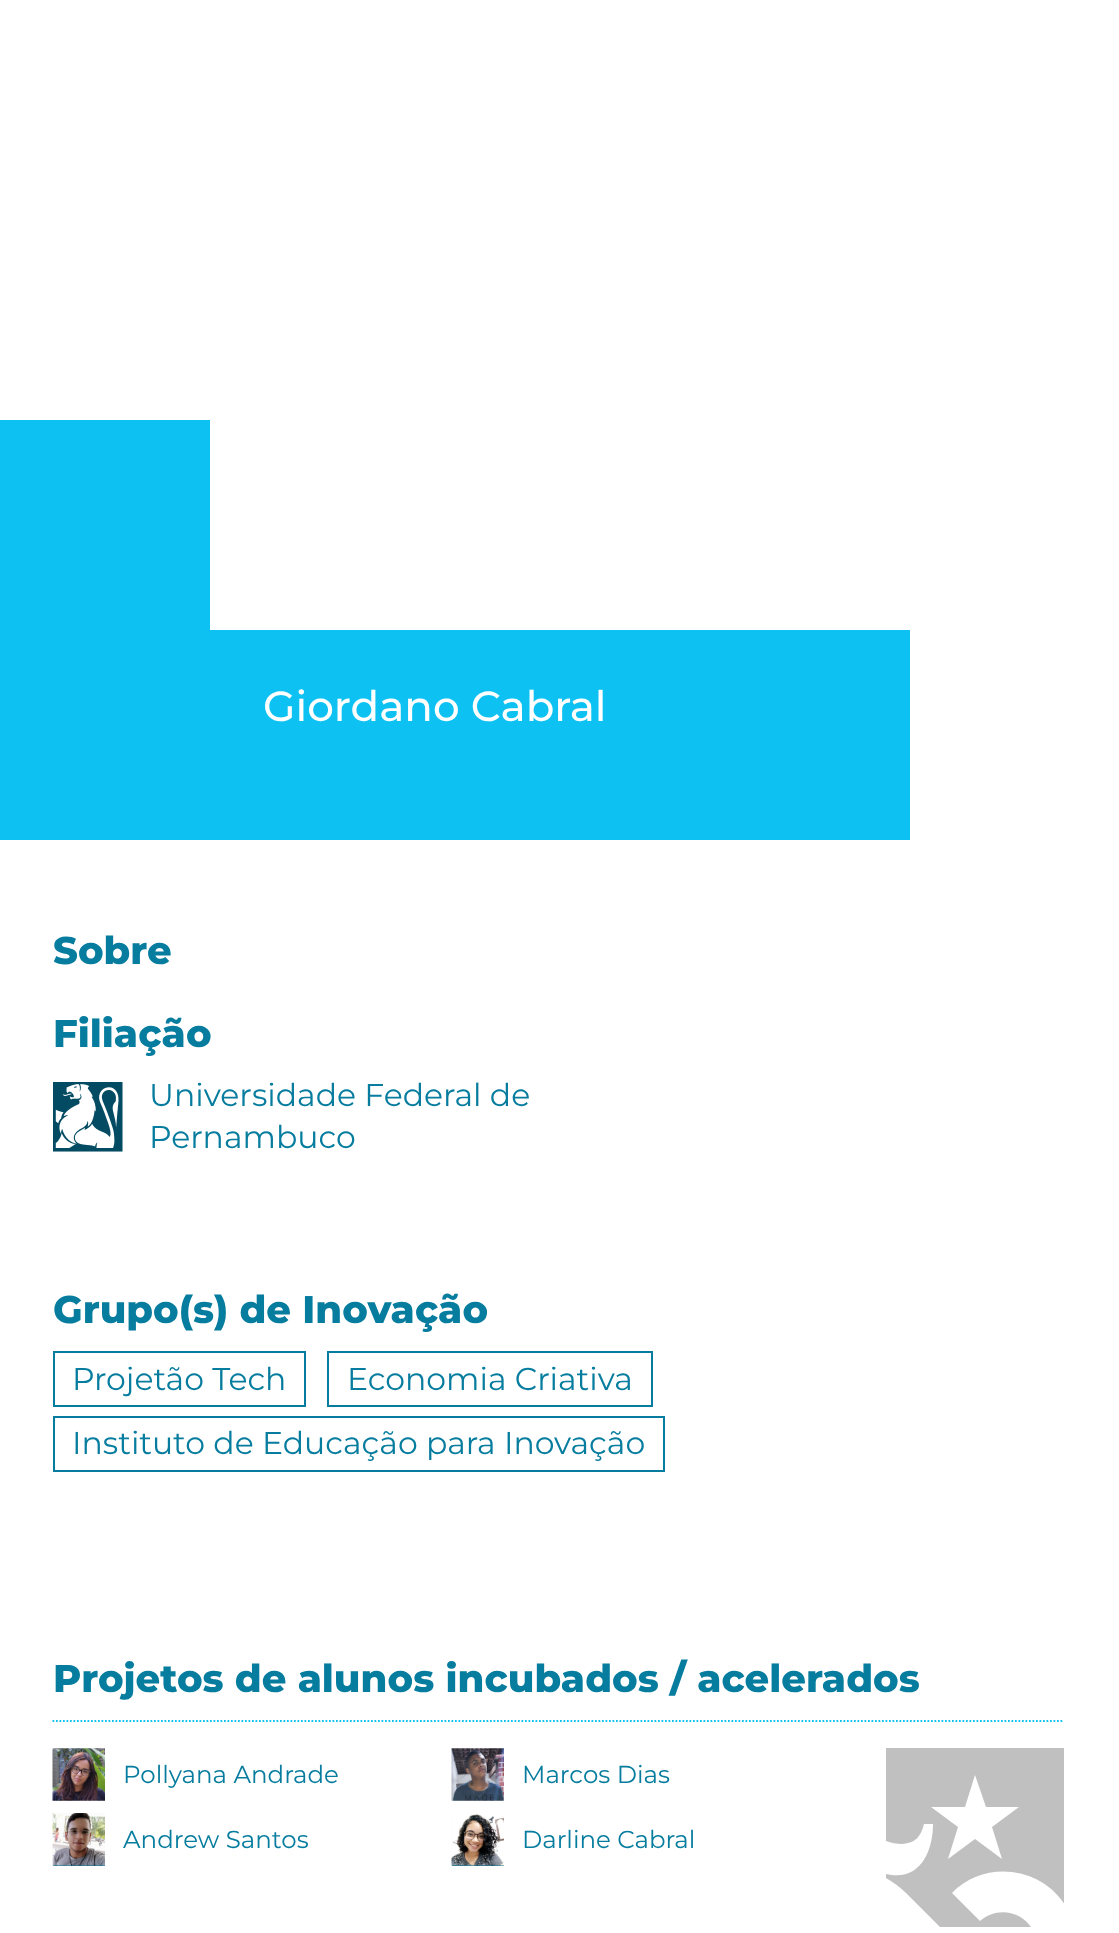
(async () => {
    const canvas = document.querySelector("canvas");
    canvas.width = 1119;
    canvas.height = 1933;
    const context = canvas.getContext("2d");
    context.miterLimit = 4;
    context.fontKerning = "normal";
    function write(s, x, y, font, color) {
        context.font = font;
        context.fillStyle = color;
        context.fillText(s, x, y);
    }
    function block(x, y, w, h, color) {
        context.fillStyle = color;
        context.fillRect(x, y, w, h);
    }
    async function photo(src, x, y, w, h) {
        const img = new Image();
        img.src = src;
        await img.decode();
        context.drawImage(img, x, y, w, h);
    }

    block(0, 0, 1119, 1933, "rgb(255, 255, 255)");
    block(0, 420, 210, 210, "rgb(13, 194, 242)");
    block(0, 630, 910, 210, "rgb(13, 194, 242)");
    write("Giordano Cabral", 263, 721, "500 42px Montserrat", "rgb(255, 255, 255)");
    write("Sobre", 53, 964, "800 38.5px Montserrat", "rgb(6, 124, 158)");
    write("Filiação", 53, 1047, "800 38.5px Montserrat", "rgb(6, 124, 158)");
    await photo("media/1.png", 53, 1082, 70, 70);
    write("Universidade Federal de", 149, 1106, "31.5px Montserrat", "rgb(6, 124, 158)");
    write("Pernambuco", 149, 1148, "31.5px Montserrat", "rgb(6, 124, 158)");
    write("Grupo(s) de Inovação", 53, 1323, "800 38.5px Montserrat", "rgb(6, 124, 158)");
    context.strokeStyle = "rgb(6, 124, 158)";
    context.lineWidth = 2;
    context.strokeRect(54, 1352, 251, 54);
    write("Projetão Tech", 72, 1390, "31.5px Montserrat", "rgb(6, 124, 158)");
    context.strokeRect(328, 1352, 324, 54);
    write("Economia Criativa", 347, 1390, "31.5px Montserrat", "rgb(6, 124, 158)");
    context.strokeRect(54, 1417, 610, 54);
    write("Instituto de Educação para Inovação", 72, 1454, "31.5px Montserrat", "rgb(6, 124, 158)");
    write("Projetos de alunos incubados / acelerados", 53, 1692, "800 38.5px Montserrat", "rgb(6, 124, 158)");
    context.beginPath();
    context.moveTo(52.5, 1721);
    context.lineTo(1064, 1721);
    context.strokeStyle = "rgb(13, 194, 242)";
    context.lineWidth = 1.8;
    context.setLineDash([1.75, 1.75]);
    context.stroke();
    await photo("media/2.png", 52, 1748, 53, 53);
    write("Pollyana Andrade", 123, 1783, "24.5px Montserrat", "rgb(6, 124, 158)");
    await photo("media/3.png", 451, 1748, 53, 53);
    write("Marcos Dias", 522, 1783, "24.5px Montserrat", "rgb(6, 124, 158)");
    block(53, 1865, 52, 1, "rgb(6, 124, 158)");
    await photo("media/4.png", 52, 1813, 53, 53);
    write("Andrew Santos", 123, 1848, "24.5px Montserrat", "rgb(6, 124, 158)");
    block(452, 1865, 52, 1, "rgb(6, 124, 158)");
    await photo("media/5.png", 451, 1813, 53, 53);
    write("Darline Cabral", 522, 1848, "24.5px Montserrat", "rgb(6, 124, 158)");
    context.save();
    context.beginPath();
    context.rect(886, 1748, 178, 181);
    context.clip();
    context.fillStyle = "rgb(192, 192, 192)";
    context.beginPath();
    context.moveTo(886, 1748);
    context.lineTo(1065, 1748);
    context.lineTo(1065, 1905);
    context.bezierCurveTo(1040, 1866, 984, 1860, 952, 1893);
    context.lineTo(980, 1921);
    context.bezierCurveTo(995, 1907, 1020, 1910, 1031, 1927);
    context.lineTo(940, 1927);
    context.lineTo(906, 1893);
    context.bezierCurveTo(900, 1887, 893, 1882, 886, 1878);
    context.lineTo(886, 1874);
    context.bezierCurveTo(919, 1882, 933, 1853, 933, 1824);
    context.lineTo(924, 1824);
    context.bezierCurveTo(921, 1836, 916, 1843, 902, 1844);
    context.bezierCurveTo(897, 1844, 891, 1843, 886, 1841);
    context.closePath();
    context.moveTo(986, 1807);
    context.lineTo(975, 1775);
    context.lineTo(965, 1807);
    context.lineTo(931, 1807);
    context.lineTo(958, 1827);
    context.lineTo(948, 1859);
    context.lineTo(975, 1839);
    context.lineTo(1002, 1859);
    context.lineTo(992, 1827);
    context.lineTo(1019, 1807);
    context.closePath();
    context.fill("evenodd");
    context.restore();
})();
